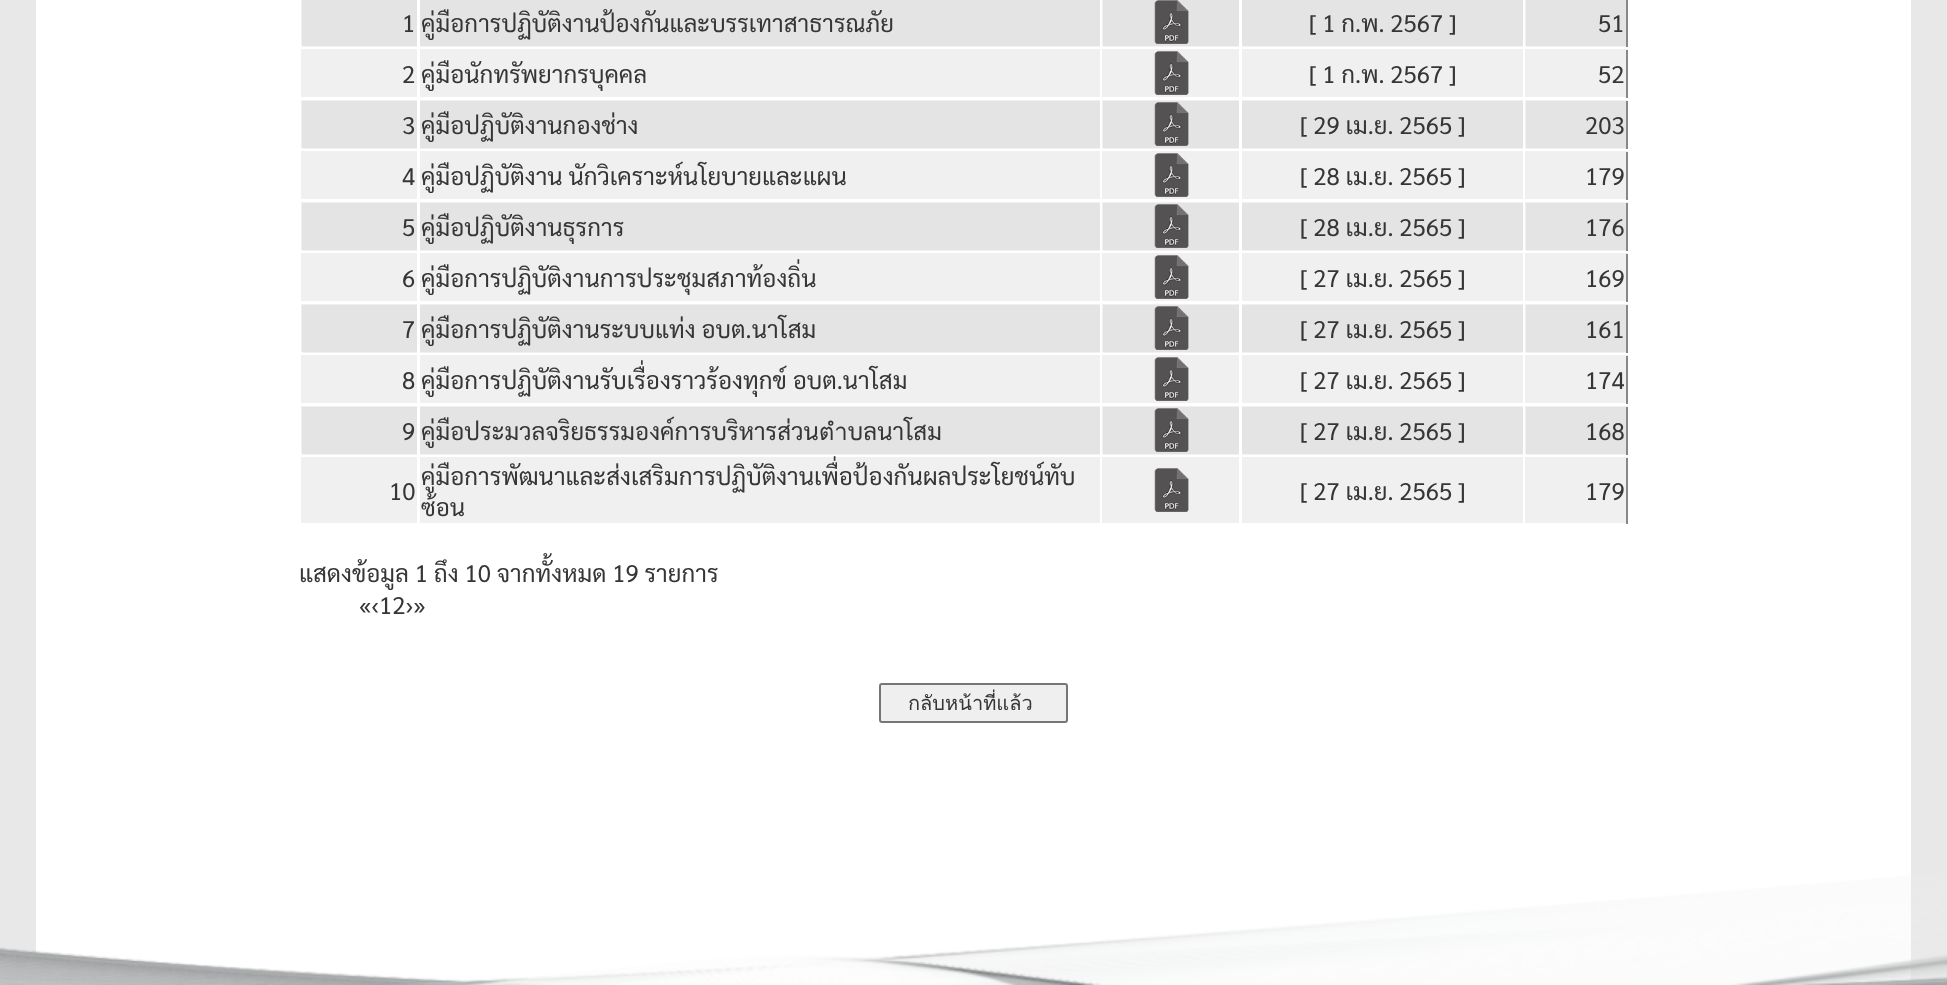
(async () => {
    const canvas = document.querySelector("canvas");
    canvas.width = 1947;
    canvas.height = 985;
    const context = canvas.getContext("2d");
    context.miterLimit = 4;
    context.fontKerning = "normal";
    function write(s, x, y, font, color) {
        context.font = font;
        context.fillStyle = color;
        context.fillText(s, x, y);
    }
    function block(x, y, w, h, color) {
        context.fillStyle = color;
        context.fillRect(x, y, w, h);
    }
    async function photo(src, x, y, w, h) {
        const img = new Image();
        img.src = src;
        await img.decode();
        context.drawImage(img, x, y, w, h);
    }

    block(0, 0, 1947, 985, "rgb(232, 232, 233)");
    block(36, 0, 1875, 723, "rgb(255, 255, 255)");
    block(1526, 454, 100, 1, "rgb(242, 242, 242)");
    block(1242, 454, 281, 1, "rgb(242, 242, 242)");
    block(1103, 454, 136, 1, "rgb(242, 242, 242)");
    block(420, 454, 680, 1, "rgb(242, 242, 242)");
    block(302, 454, 115, 1, "rgb(242, 242, 242)");
    block(1526, 352, 100, 1, "rgb(242, 242, 242)");
    block(1242, 352, 281, 1, "rgb(242, 242, 242)");
    block(1103, 352, 136, 1, "rgb(242, 242, 242)");
    block(420, 352, 680, 1, "rgb(242, 242, 242)");
    block(302, 352, 115, 1, "rgb(242, 242, 242)");
    block(1526, 250, 100, 1, "rgb(242, 242, 242)");
    block(1242, 250, 281, 1, "rgb(242, 242, 242)");
    block(1103, 250, 136, 1, "rgb(242, 242, 242)");
    block(420, 250, 680, 1, "rgb(242, 242, 242)");
    block(302, 250, 115, 1, "rgb(242, 242, 242)");
    block(1526, 148, 100, 1, "rgb(242, 242, 242)");
    block(1242, 148, 281, 1, "rgb(242, 242, 242)");
    block(1103, 148, 136, 1, "rgb(242, 242, 242)");
    block(420, 148, 680, 1, "rgb(242, 242, 242)");
    block(302, 148, 115, 1, "rgb(242, 242, 242)");
    block(1526, 46, 100, 1, "rgb(242, 242, 242)");
    block(1242, 46, 281, 1, "rgb(242, 242, 242)");
    block(1103, 46, 136, 1, "rgb(242, 242, 242)");
    block(420, 46, 680, 1, "rgb(242, 242, 242)");
    block(302, 46, 115, 1, "rgb(242, 242, 242)");
    block(420, 0, 680, 46, "rgb(228, 228, 229)");
    block(1102, 0, 1, 46, "rgb(240, 240, 241)");
    block(1103, 0, 136, 46, "rgb(228, 228, 229)");
    await photo("media/1.png", 1154, 0, 35, 44);
    block(301, 0, 1, 46, "rgb(240, 240, 241)");
    block(302, 0, 115, 46, "rgb(228, 228, 229)");
    write("1 คู่มือการปฏิบัติงานป้องกันและบรรเทาสาธารณภัย", 402, 32, "24px Sarabun", "rgb(54, 54, 54)");
    block(1242, 0, 281, 46, "rgb(228, 228, 229)");
    write("[ 1 ก.พ. 2567 ]", 1309, 32, "24px Sarabun", "rgb(54, 54, 54)");
    block(1525, 0, 1, 46, "rgb(240, 240, 241)");
    block(1526, 0, 100, 46, "rgb(228, 228, 229)");
    block(1626, 0, 2, 47, "rgb(136, 136, 136)");
    write("51", 1598, 32, "24px Sarabun", "rgb(54, 54, 54)");
    block(420, 49, 680, 48, "rgb(240, 240, 241)");
    block(1102, 49, 137, 48, "rgb(240, 240, 241)");
    await photo("media/2.png", 1154, 51, 35, 44);
    block(301, 49, 116, 48, "rgb(240, 240, 241)");
    write("2 คู่มือนักทรัพยากรบุคคล", 402, 83, "24px Sarabun", "rgb(54, 54, 54)");
    block(1242, 49, 281, 48, "rgb(240, 240, 241)");
    write("[ 1 ก.พ. 2567 ]", 1309, 83, "24px Sarabun", "rgb(54, 54, 54)");
    block(1525, 49, 103, 48, "rgb(240, 240, 241)");
    block(1626, 50, 2, 48, "rgb(136, 136, 136)");
    write("52", 1598, 83, "24px Sarabun", "rgb(54, 54, 54)");
    block(420, 100, 680, 1, "rgb(240, 240, 241)");
    block(420, 101, 680, 47, "rgb(228, 228, 229)");
    block(1102, 100, 137, 48, "rgb(240, 240, 241)");
    block(1103, 101, 136, 47, "rgb(228, 228, 229)");
    await photo("media/1.png", 1154, 102, 35, 44);
    block(301, 100, 116, 48, "rgb(240, 240, 241)");
    block(302, 101, 115, 47, "rgb(228, 228, 229)");
    write("3 คู่มือปฏิบัติงานกองช่าง", 402, 134, "24px Sarabun", "rgb(54, 54, 54)");
    block(1242, 100, 281, 1, "rgb(240, 240, 241)");
    block(1242, 101, 281, 47, "rgb(228, 228, 229)");
    write("[ 29 เม.ย. 2565 ]", 1300, 134, "24px Sarabun", "rgb(54, 54, 54)");
    block(1525, 100, 103, 48, "rgb(240, 240, 241)");
    block(1526, 101, 100, 47, "rgb(228, 228, 229)");
    block(1626, 101, 2, 48, "rgb(136, 136, 136)");
    write("203", 1585, 134, "24px Sarabun", "rgb(54, 54, 54)");
    block(420, 151, 680, 48, "rgb(240, 240, 241)");
    block(1102, 151, 137, 48, "rgb(240, 240, 241)");
    await photo("media/2.png", 1154, 153, 35, 44);
    block(301, 151, 116, 48, "rgb(240, 240, 241)");
    write("4 คู่มือปฏิบัติงาน นักวิเคราะห์นโยบายและแผน", 402, 185, "24px Sarabun", "rgb(54, 54, 54)");
    block(1242, 151, 281, 48, "rgb(240, 240, 241)");
    write("[ 28 เม.ย. 2565 ]", 1300, 185, "24px Sarabun", "rgb(54, 54, 54)");
    block(1525, 151, 103, 48, "rgb(240, 240, 241)");
    block(1626, 152, 2, 48, "rgb(136, 136, 136)");
    write("179", 1585, 185, "24px Sarabun", "rgb(54, 54, 54)");
    block(420, 202, 680, 1, "rgb(240, 240, 241)");
    block(420, 203, 680, 47, "rgb(228, 228, 229)");
    block(1102, 202, 137, 48, "rgb(240, 240, 241)");
    block(1103, 203, 136, 47, "rgb(228, 228, 229)");
    await photo("media/1.png", 1154, 204, 35, 44);
    block(301, 202, 116, 48, "rgb(240, 240, 241)");
    block(302, 203, 115, 47, "rgb(228, 228, 229)");
    write("5 คู่มือปฏิบัติงานธุรการ", 402, 236, "24px Sarabun", "rgb(54, 54, 54)");
    block(1242, 202, 281, 1, "rgb(240, 240, 241)");
    block(1242, 203, 281, 47, "rgb(228, 228, 229)");
    write("[ 28 เม.ย. 2565 ]", 1300, 236, "24px Sarabun", "rgb(54, 54, 54)");
    block(1525, 202, 103, 48, "rgb(240, 240, 241)");
    block(1526, 203, 100, 47, "rgb(228, 228, 229)");
    block(1626, 203, 2, 48, "rgb(136, 136, 136)");
    write("176", 1585, 236, "24px Sarabun", "rgb(54, 54, 54)");
    block(420, 253, 680, 48, "rgb(240, 240, 241)");
    block(1102, 253, 137, 48, "rgb(240, 240, 241)");
    await photo("media/2.png", 1154, 255, 35, 44);
    block(301, 253, 116, 48, "rgb(240, 240, 241)");
    write("6 คู่มือการปฏิบัติงานการประชุมสภาท้องถิ่น", 402, 287, "24px Sarabun", "rgb(54, 54, 54)");
    block(1242, 253, 281, 48, "rgb(240, 240, 241)");
    write("[ 27 เม.ย. 2565 ]", 1300, 287, "24px Sarabun", "rgb(54, 54, 54)");
    block(1525, 253, 103, 48, "rgb(240, 240, 241)");
    block(1626, 254, 2, 48, "rgb(136, 136, 136)");
    write("169", 1585, 287, "24px Sarabun", "rgb(54, 54, 54)");
    block(420, 304, 680, 1, "rgb(240, 240, 241)");
    block(420, 305, 680, 47, "rgb(228, 228, 229)");
    block(1102, 304, 137, 48, "rgb(240, 240, 241)");
    block(1103, 305, 136, 47, "rgb(228, 228, 229)");
    await photo("media/1.png", 1154, 306, 35, 44);
    block(301, 304, 116, 48, "rgb(240, 240, 241)");
    block(302, 305, 115, 47, "rgb(228, 228, 229)");
    write("7 คู่มือการปฏิบัติงานระบบแท่ง อบต.นาโสม", 402, 338, "24px Sarabun", "rgb(54, 54, 54)");
    block(1242, 304, 281, 1, "rgb(240, 240, 241)");
    block(1242, 305, 281, 47, "rgb(228, 228, 229)");
    write("[ 27 เม.ย. 2565 ]", 1300, 338, "24px Sarabun", "rgb(54, 54, 54)");
    block(1525, 304, 103, 48, "rgb(240, 240, 241)");
    block(1526, 305, 100, 47, "rgb(228, 228, 229)");
    block(1626, 305, 2, 48, "rgb(136, 136, 136)");
    write("161", 1585, 338, "24px Sarabun", "rgb(54, 54, 54)");
    block(420, 355, 680, 48, "rgb(240, 240, 241)");
    block(1102, 355, 137, 48, "rgb(240, 240, 241)");
    await photo("media/2.png", 1154, 357, 35, 44);
    block(301, 355, 116, 48, "rgb(240, 240, 241)");
    write("8 คู่มือการปฏิบัติงานรับเรื่องราวร้องทุกข์ อบต.นาโสม", 402, 389, "24px Sarabun", "rgb(54, 54, 54)");
    block(1242, 355, 281, 48, "rgb(240, 240, 241)");
    write("[ 27 เม.ย. 2565 ]", 1300, 389, "24px Sarabun", "rgb(54, 54, 54)");
    block(1525, 355, 103, 48, "rgb(240, 240, 241)");
    block(1626, 356, 2, 48, "rgb(136, 136, 136)");
    write("174", 1585, 389, "24px Sarabun", "rgb(54, 54, 54)");
    block(420, 406, 680, 1, "rgb(240, 240, 241)");
    block(420, 407, 680, 47, "rgb(228, 228, 229)");
    block(1102, 406, 137, 48, "rgb(240, 240, 241)");
    block(1103, 407, 136, 47, "rgb(228, 228, 229)");
    await photo("media/1.png", 1154, 408, 35, 44);
    block(301, 406, 116, 48, "rgb(240, 240, 241)");
    block(302, 407, 115, 47, "rgb(228, 228, 229)");
    write("9 คู่มือประมวลจริยธรรมองค์การบริหารส่วนตำบลนาโสม", 402, 440, "24px Sarabun", "rgb(54, 54, 54)");
    block(1242, 406, 281, 1, "rgb(240, 240, 241)");
    block(1242, 407, 281, 47, "rgb(228, 228, 229)");
    write("[ 27 เม.ย. 2565 ]", 1300, 440, "24px Sarabun", "rgb(54, 54, 54)");
    block(1525, 406, 103, 48, "rgb(240, 240, 241)");
    block(1526, 407, 100, 47, "rgb(228, 228, 229)");
    block(1626, 407, 2, 48, "rgb(136, 136, 136)");
    write("168", 1585, 440, "24px Sarabun", "rgb(54, 54, 54)");
    block(301, 457, 116, 66, "rgb(240, 240, 241)");
    write("10", 389, 500, "24px Sarabun", "rgb(54, 54, 54)");
    block(420, 457, 680, 66, "rgb(240, 240, 241)");
    write("คู่มือการพัฒนาและส่งเสริมการปฏิบัติงานเพื่อป้องกันผลประโยชน์ทับ", 421, 485, "24px Sarabun", "rgb(54, 54, 54)");
    write("ซ้อน", 421, 516, "24px Sarabun", "rgb(54, 54, 54)");
    block(1102, 457, 137, 66, "rgb(240, 240, 241)");
    await photo("media/2.png", 1154, 468, 35, 44);
    block(1242, 457, 281, 66, "rgb(240, 240, 241)");
    write("[ 27 เม.ย. 2565 ]", 1300, 500, "24px Sarabun", "rgb(54, 54, 54)");
    block(1525, 457, 103, 66, "rgb(240, 240, 241)");
    block(1626, 458, 2, 66, "rgb(136, 136, 136)");
    write("179", 1585, 500, "24px Sarabun", "rgb(54, 54, 54)");
    write("แสดงข้อมูล 1 ถึง 10 จากทั้งหมด 19 รายการ", 299, 582, "24px Sarabun", "rgb(54, 54, 54)");
    write("«‹12›»", 359, 614, "24px Sarabun", "rgb(54, 54, 54)");
    context.fillStyle = "rgb(239, 239, 239)";
    context.beginPath();
    context.roundRect(880, 684, 187, 38, 2);
    context.fill();
    context.strokeStyle = "rgb(118, 118, 118)";
    context.lineWidth = 2;
    context.stroke();
    write("กลับหน้าที่แล้ว", 908, 710, "20px Loma", "rgb(54, 54, 54)");
    await photo("media/3.png", 0, 723, 36, 262);
    await photo("media/4.png", 36, 723, 1875, 262);
    await photo("media/5.png", 1911, 723, 36, 262);
})();
